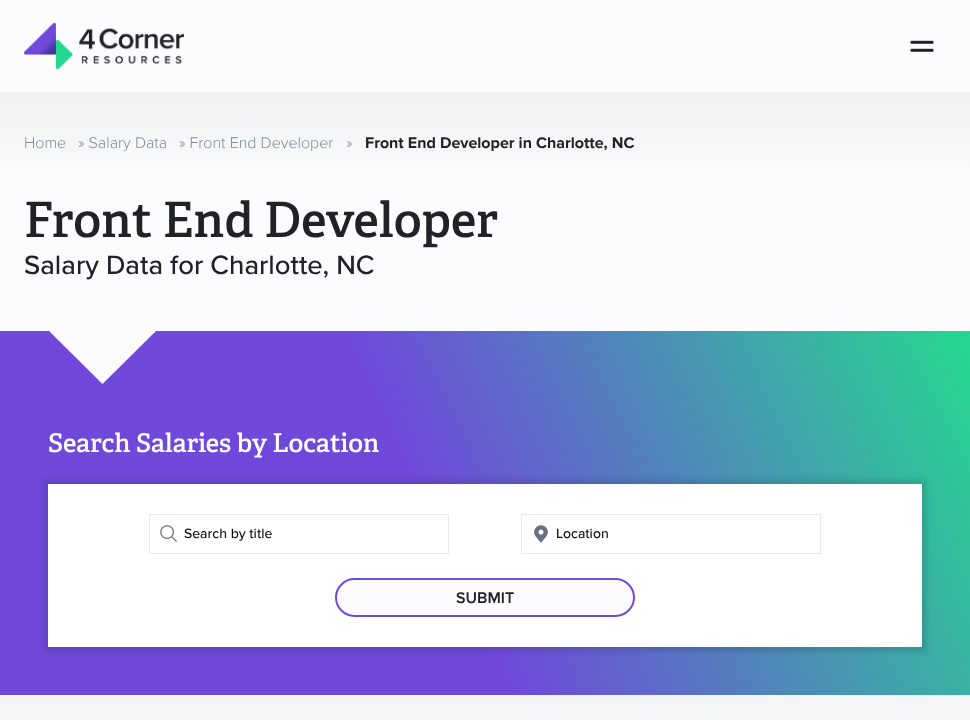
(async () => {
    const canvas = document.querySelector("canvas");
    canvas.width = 970;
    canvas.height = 720;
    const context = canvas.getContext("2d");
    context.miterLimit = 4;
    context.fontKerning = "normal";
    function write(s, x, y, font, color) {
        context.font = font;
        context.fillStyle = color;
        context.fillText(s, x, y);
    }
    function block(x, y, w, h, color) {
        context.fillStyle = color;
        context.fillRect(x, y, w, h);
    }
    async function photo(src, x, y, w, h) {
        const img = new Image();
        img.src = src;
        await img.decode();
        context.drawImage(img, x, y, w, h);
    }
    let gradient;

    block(0, 0, 970, 720, "rgb(252, 252, 255)");
    await photo("media/1.png", 24, 23, 160, 46);
    await photo("media/2.png", 910, 40, 24, 12);
    gradient = context.createLinearGradient(485, 92, 485, 192);
    gradient.addColorStop(0, "rgb(241, 241, 244)");
    gradient.addColorStop(1, "rgb(252, 252, 255)");
    context.fillStyle = gradient;
    context.fillRect(0, 92, 970, 77);
    write("Home", 24, 148, "300 16px Proxima Nova", "rgb(126, 138, 151)");
    write("» Salary Data", 78, 148, "300 16px Proxima Nova", "rgb(126, 138, 151)");
    write("» Front End Developer", 179, 148, "300 16px Proxima Nova", "rgb(126, 138, 151)");
    write("»", 346, 148, "300 16px Proxima Nova", "rgb(126, 138, 151)");
    write("Front End Developer in Charlotte, NC", 365, 148, "bold 16px Proxima Nova", "rgb(32, 34, 40)");
    write("Front End Developer", 24, 237, "600 48.75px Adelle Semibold", "rgb(32, 34, 40)");
    write("Salary Data for Charlotte, NC", 24, 274, "500 27.5px Proxima Nova", "rgb(32, 34, 40)");
    gradient = context.createLinearGradient(953, 295, 17, 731);
    gradient.addColorStop(0, "rgb(37, 216, 143)");
    gradient.addColorStop(0.55, "rgb(112, 73, 219)");
    context.fillStyle = gradient;
    context.fillRect(0, 331, 970, 364);
    await photo("media/3.png", 49, 331, 107, 53);
    write("Search Salaries by Location", 48, 452, "600 25.75px Adelle Semibold", "rgb(255, 255, 255)");
    context.fillStyle = "rgba(0, 0, 0, 0.11)";
    context.filter = "blur(2.5px)";
    context.beginPath();
    context.rect(43, 479, 884, 173);
    context.fill();
    context.filter = "none";
    block(48, 484, 874, 163, "rgb(255, 255, 255)");
    await photo("media/4.png", 160, 525, 17, 17);
    context.strokeStyle = "rgb(234, 234, 234)";
    context.strokeRect(149.5, 514.5, 299, 39);
    write("Search by title", 184, 538, "500 14px Proxima Nova", "rgb(17, 17, 17)");
    await photo("media/5.png", 534, 525, 14, 18);
    context.strokeRect(521.5, 514.5, 299, 39);
    write("Location", 556, 538, "500 14px Proxima Nova", "rgb(17, 17, 17)");
    context.fillStyle = "rgb(252, 252, 255)";
    context.beginPath();
    context.roundRect(336, 579, 298, 37, 18.5);
    context.fill();
    context.strokeStyle = "rgb(112, 73, 219)";
    context.lineWidth = 2;
    context.stroke();
    write("SUBMIT", 456, 603, "600 16px Proxima Nova", "rgb(32, 34, 40)");
    block(0, 695, 970, 25, "rgb(244, 245, 246)");
})();
